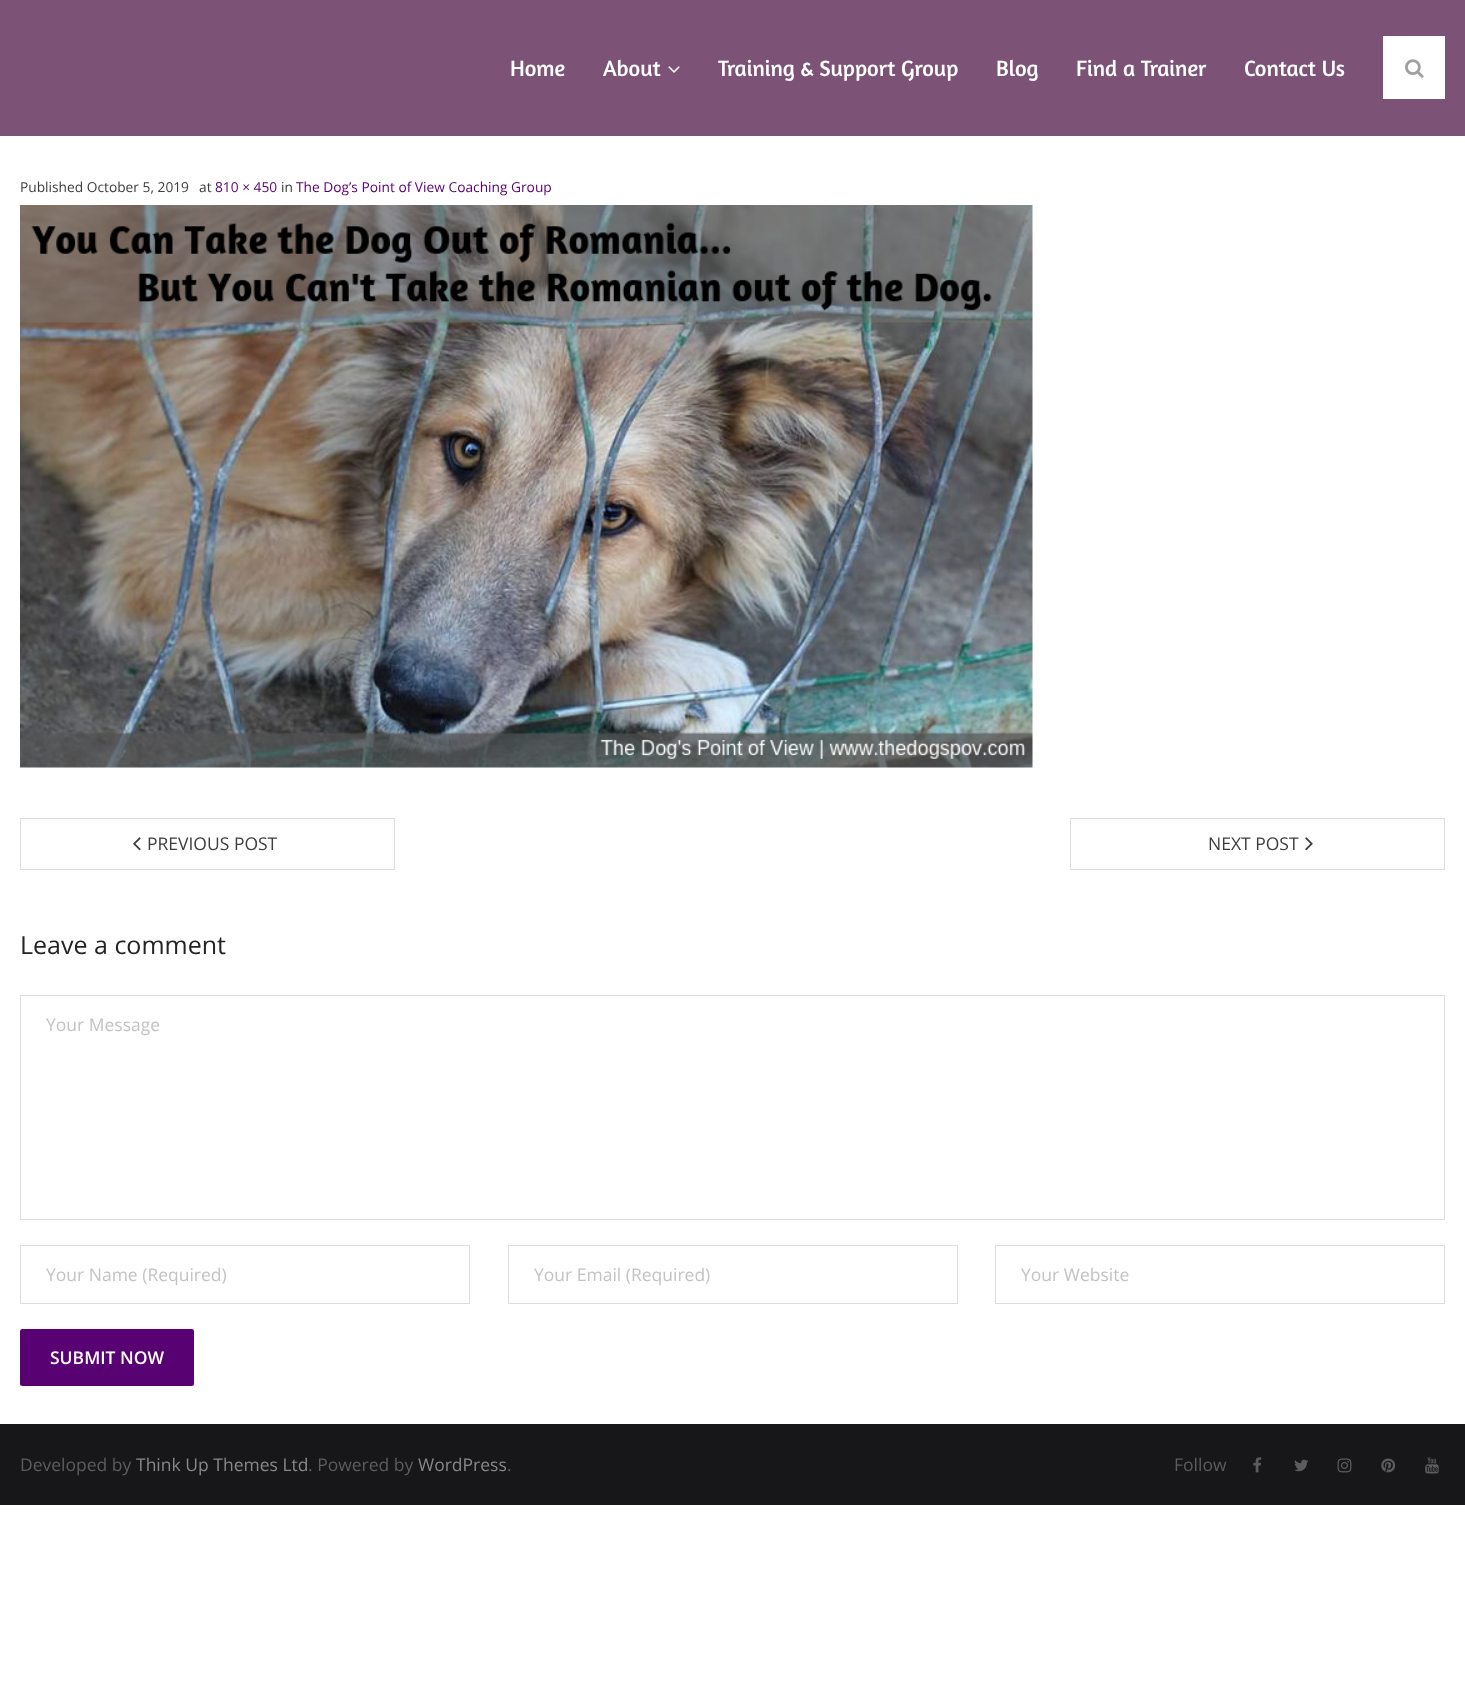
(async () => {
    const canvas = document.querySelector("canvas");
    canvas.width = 1465;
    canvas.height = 1690;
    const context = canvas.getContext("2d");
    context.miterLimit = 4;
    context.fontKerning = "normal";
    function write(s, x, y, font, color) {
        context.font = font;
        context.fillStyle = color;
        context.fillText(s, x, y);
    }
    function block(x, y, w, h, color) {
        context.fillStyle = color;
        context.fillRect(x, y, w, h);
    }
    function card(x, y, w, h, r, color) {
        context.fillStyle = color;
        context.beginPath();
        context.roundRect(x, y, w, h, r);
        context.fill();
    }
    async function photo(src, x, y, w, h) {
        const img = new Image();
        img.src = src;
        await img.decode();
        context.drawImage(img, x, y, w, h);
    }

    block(0, 0, 1465, 1690, "rgb(255, 255, 255)");
    block(0, 0, 1465, 136, "rgb(124, 83, 119)");
    write("Home", 510, 76, "22.5px Amaranth", "rgb(255, 255, 255)");
    write("About", 603, 76, "22.5px Amaranth", "rgb(255, 255, 255)");
    await photo("media/1.png", 668, 66, 12, 7);
    write("Training & Support Group", 718, 76, "22.5px Amaranth", "rgb(255, 255, 255)");
    write("Blog", 996, 76, "22.5px Amaranth", "rgb(255, 255, 255)");
    write("Find a Trainer", 1076, 76, "22.5px Amaranth", "rgb(255, 255, 255)");
    write("Contact Us", 1244, 76, "22.5px Amaranth", "rgb(255, 255, 255)");
    block(1383, 36, 62, 63, "rgb(255, 255, 255)");
    await photo("media/2.png", 1405, 59, 19, 19);
    write("Published October 5, 2019", 20, 192, "13.75px Open Sans", "rgb(61, 61, 61)");
    write("at", 199, 192, "13.75px Open Sans", "rgb(61, 61, 61)");
    write("810 × 450", 215, 192, "13.75px Open Sans", "rgb(88, 1, 114)");
    write("in", 281, 192, "13.75px Open Sans", "rgb(61, 61, 61)");
    write("The Dog’s Point of View Coaching Group", 296, 192, "13.75px Open Sans", "rgb(88, 1, 114)");
    await photo("media/3.png", 20, 205, 1013, 563);
    context.strokeStyle = "rgb(221, 221, 221)";
    context.strokeRect(20.5, 818.5, 374, 51);
    await photo("media/4.png", 133, 837, 8, 14);
    write("PREVIOUS POST", 147, 850, "17.5px Open Sans", "rgb(61, 61, 61)");
    context.strokeRect(1070.5, 818.5, 374, 51);
    write("NEXT POST", 1208, 850, "17.5px Open Sans", "rgb(61, 61, 61)");
    await photo("media/5.png", 1305, 837, 8, 14);
    write("Leave a comment", 20, 954, "25px Open Sans", "rgb(35, 35, 35)");
    context.strokeRect(20.5, 995.5, 1424, 224);
    write("Your Message", 46, 1031, "17.5px Open Sans", "rgb(195, 195, 195)");
    context.strokeRect(20.5, 1245.5, 449, 58);
    write("Your Name (Required)", 46, 1281, "17.5px Open Sans", "rgb(195, 195, 195)");
    context.strokeRect(508.5, 1245.5, 449, 58);
    write("Your Email (Required)", 534, 1281, "17.5px Open Sans", "rgb(195, 195, 195)");
    context.strokeRect(995.5, 1245.5, 449, 58);
    write("Your Website", 1021, 1281, "17.5px Open Sans", "rgb(195, 195, 195)");
    card(20, 1329, 174, 57, 2.5, "rgb(88, 1, 114)");
    write("SUBMIT NOW", 50, 1364, "600 17.5px Open Sans", "rgb(255, 255, 255)");
    block(0, 1424, 1465, 81, "rgb(23, 23, 25)");
    write("Developed by", 20, 1471, "17.5px Open Sans", "rgb(92, 92, 92)");
    write("Think Up Themes Ltd", 136, 1471, "17.5px Open Sans", "rgb(136, 136, 136)");
    write(". Powered by", 308, 1471, "17.5px Open Sans", "rgb(92, 92, 92)");
    write("WordPress", 418, 1471, "17.5px Open Sans", "rgb(136, 136, 136)");
    write(".", 507, 1471, "17.5px Open Sans", "rgb(92, 92, 92)");
    write("Follow", 1174, 1471, "17.5px Open Sans", "rgb(92, 92, 92)");
    await photo("media/6.png", 1253, 1457, 9, 16);
    await photo("media/7.png", 1294, 1459, 15, 13);
    await photo("media/8.png", 1337, 1458, 15, 15);
    await photo("media/9.png", 1381, 1458, 15, 15);
    await photo("media/10.png", 1425, 1457, 14, 17);
})();
